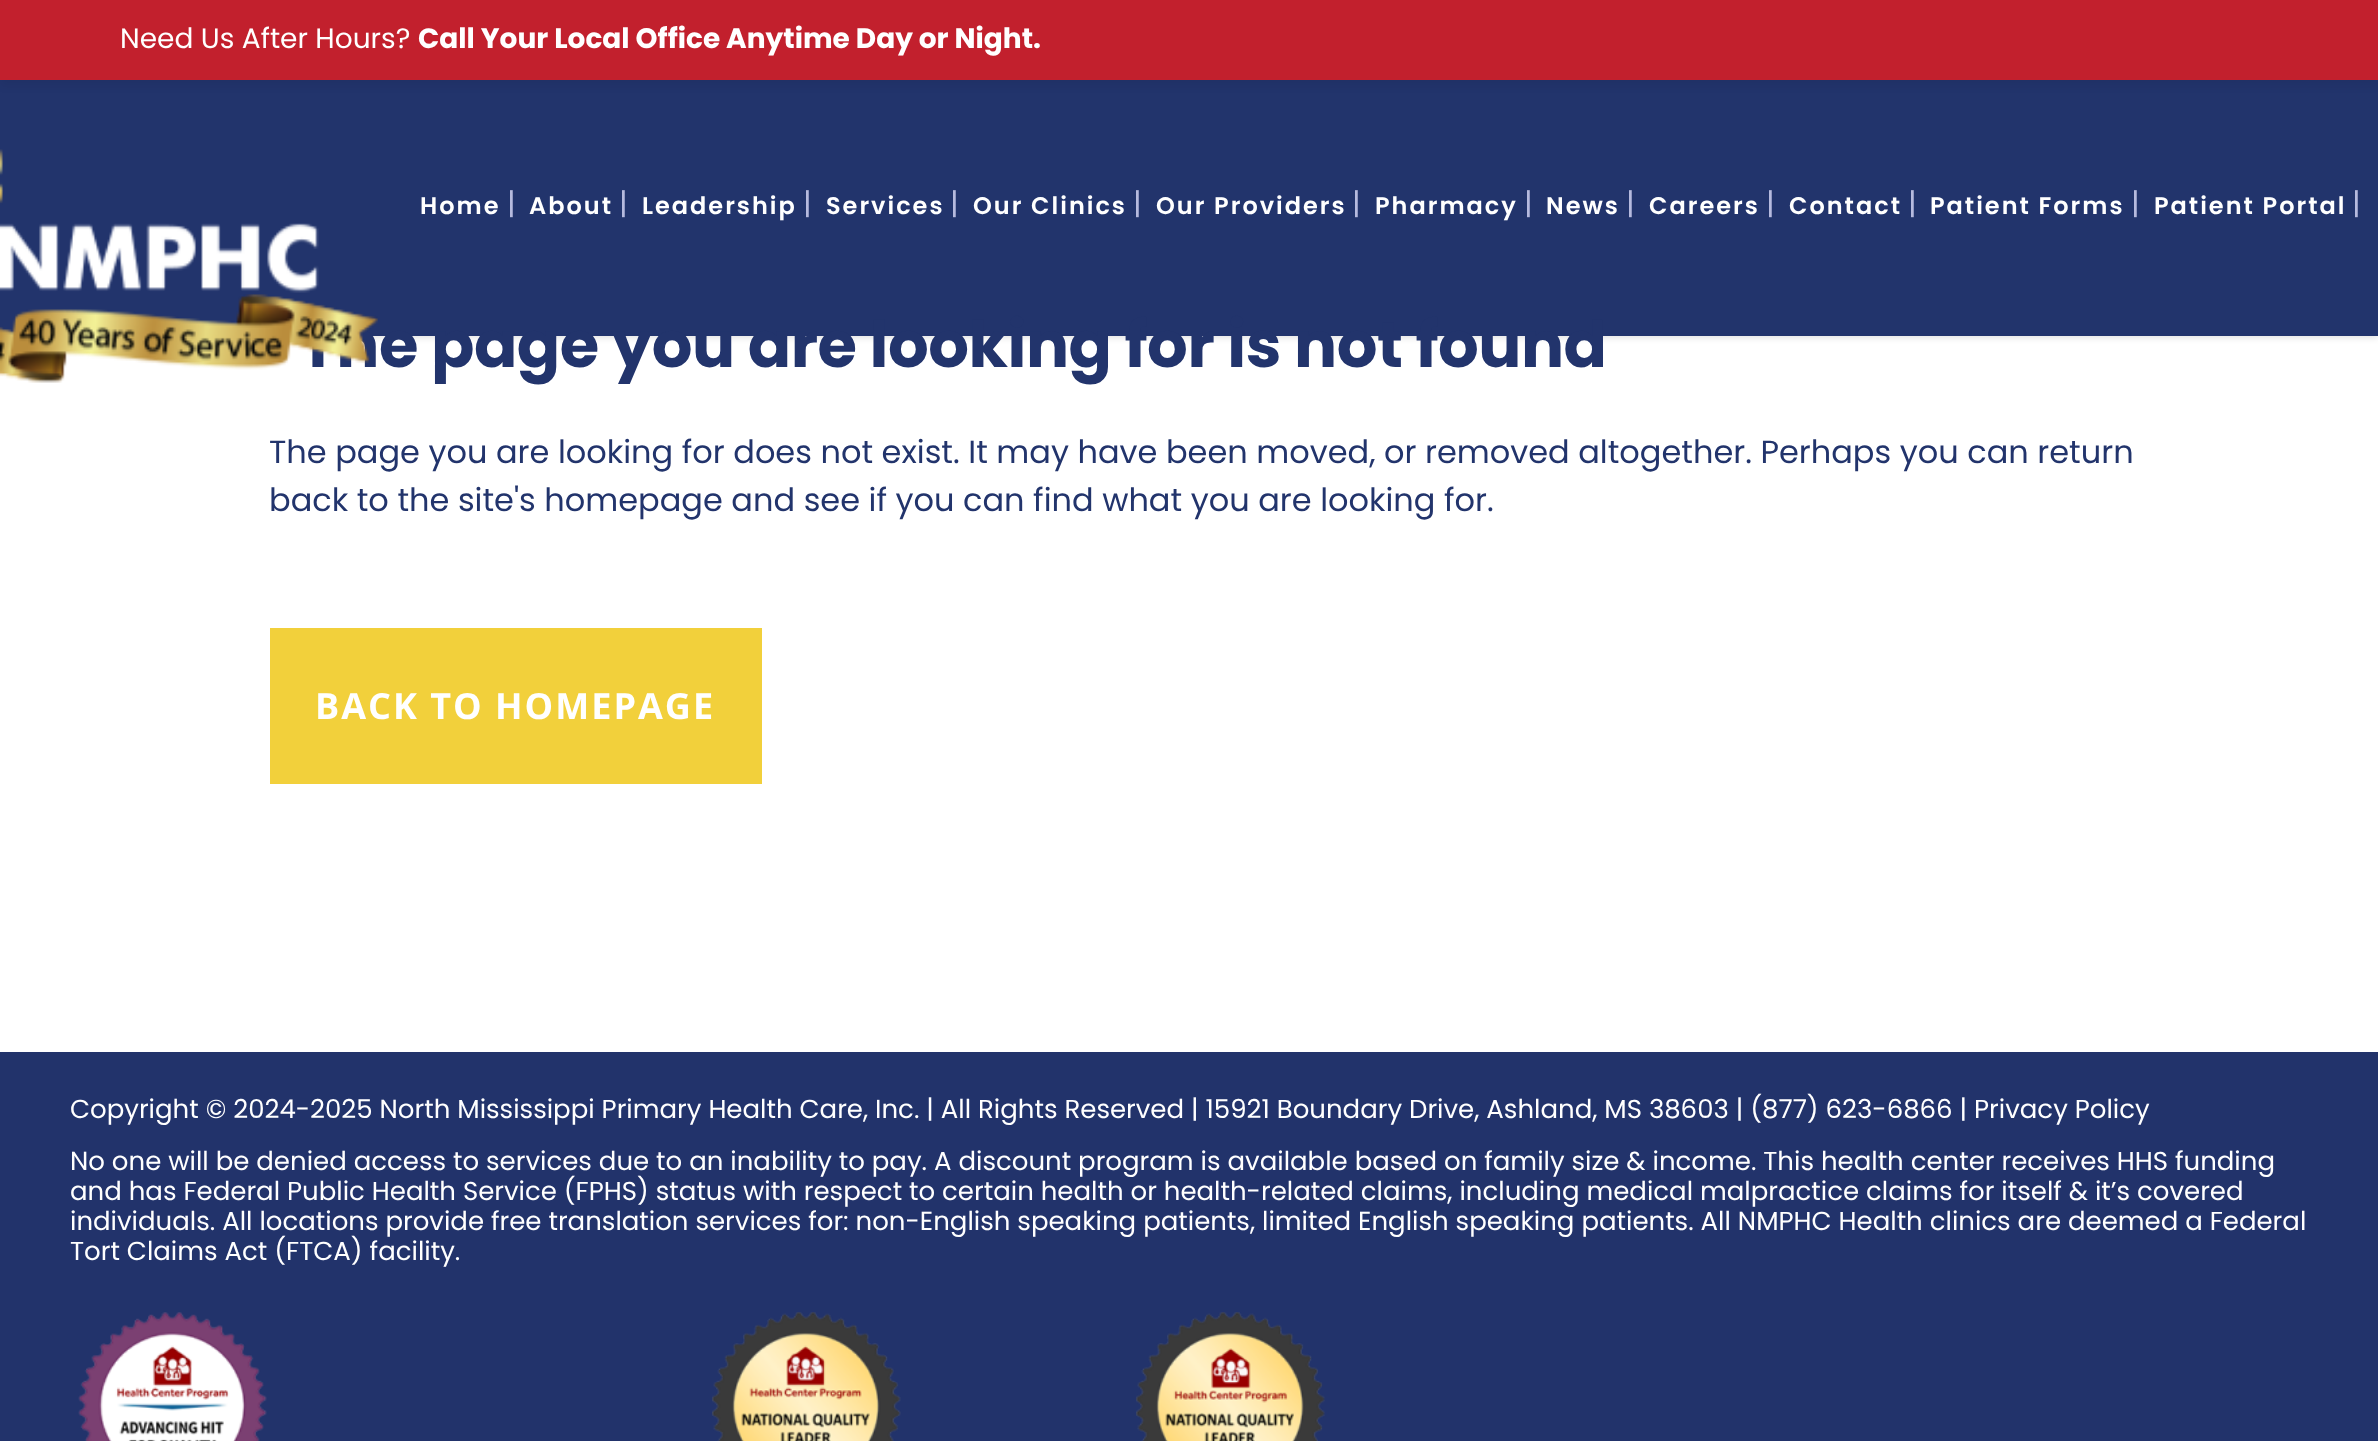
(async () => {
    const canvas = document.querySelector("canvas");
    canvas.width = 2378;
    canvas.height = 1441;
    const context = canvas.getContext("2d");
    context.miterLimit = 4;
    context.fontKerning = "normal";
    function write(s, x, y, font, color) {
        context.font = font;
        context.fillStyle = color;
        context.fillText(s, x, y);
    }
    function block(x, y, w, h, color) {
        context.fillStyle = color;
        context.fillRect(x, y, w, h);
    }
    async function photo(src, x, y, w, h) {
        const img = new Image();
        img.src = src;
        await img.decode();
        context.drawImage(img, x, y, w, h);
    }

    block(0, 0, 2378, 1441, "rgb(255, 255, 255)");
    context.fillStyle = "rgba(0, 0, 0, 0.11)";
    context.filter = "blur(3px)";
    context.beginPath();
    context.rect(0, 78, 2378, 260);
    context.fill();
    context.filter = "none";
    block(0, 80, 2378, 256, "rgb(34, 52, 108)");
    context.fillStyle = "rgba(0, 0, 0, 0.05)";
    context.filter = "blur(4px)";
    context.beginPath();
    context.rect(0, 6, 2378, 80);
    context.fill();
    context.filter = "none";
    block(0, 0, 2378, 80, "rgb(194, 32, 45)");
    write("Need Us After Hours?", 120, 48, "28px Poppins", "rgb(255, 255, 255)");
    write("Call Your Local Office Anytime Day or Night.", 418, 48, "bold 28px Poppins", "rgb(255, 255, 255)");
    context.letterSpacing = "-0.5px";
    write("The page you are looking for is not found", 299, 367, "bold 64px Poppins", "rgb(34, 52, 108)");
    await photo("media/1.png", 0, 149, 378, 234);
    context.letterSpacing = "2px";
    write("Home", 420, 214, "600 24px Poppins", "rgb(255, 255, 255)");
    context.letterSpacing = "0px";
    write("|", 507, 214, "30px Poppins", "rgb(182, 186, 222)");
    context.letterSpacing = "2px";
    write("About", 529, 214, "600 24px Poppins", "rgb(255, 255, 255)");
    context.letterSpacing = "0px";
    write("|", 619, 214, "30px Poppins", "rgb(182, 186, 222)");
    context.letterSpacing = "2px";
    write("Leadership", 642, 214, "600 24px Poppins", "rgb(255, 255, 255)");
    context.letterSpacing = "0px";
    write("|", 803, 214, "30px Poppins", "rgb(182, 186, 222)");
    context.letterSpacing = "2px";
    write("Services", 826, 214, "600 24px Poppins", "rgb(255, 255, 255)");
    context.letterSpacing = "0px";
    write("|", 950, 214, "30px Poppins", "rgb(182, 186, 222)");
    context.letterSpacing = "2px";
    write("Our Clinics", 973, 214, "600 24px Poppins", "rgb(255, 255, 255)");
    context.letterSpacing = "0px";
    write("|", 1133, 214, "30px Poppins", "rgb(182, 186, 222)");
    context.letterSpacing = "2px";
    write("Our Providers", 1156, 214, "600 24px Poppins", "rgb(255, 255, 255)");
    context.letterSpacing = "0px";
    write("|", 1352, 214, "30px Poppins", "rgb(182, 186, 222)");
    context.letterSpacing = "2px";
    write("Pharmacy", 1375, 214, "600 24px Poppins", "rgb(255, 255, 255)");
    context.letterSpacing = "0px";
    write("|", 1524, 214, "30px Poppins", "rgb(182, 186, 222)");
    context.letterSpacing = "2px";
    write("News", 1546, 214, "600 24px Poppins", "rgb(255, 255, 255)");
    context.letterSpacing = "0px";
    write("|", 1626, 214, "30px Poppins", "rgb(182, 186, 222)");
    context.letterSpacing = "2px";
    write("Careers", 1649, 214, "600 24px Poppins", "rgb(255, 255, 255)");
    context.letterSpacing = "0px";
    write("|", 1766, 214, "30px Poppins", "rgb(182, 186, 222)");
    context.letterSpacing = "2px";
    write("Contact", 1789, 214, "600 24px Poppins", "rgb(255, 255, 255)");
    context.letterSpacing = "0px";
    write("|", 1908, 214, "30px Poppins", "rgb(182, 186, 222)");
    context.letterSpacing = "2px";
    write("Patient Forms", 1930, 214, "600 24px Poppins", "rgb(255, 255, 255)");
    context.letterSpacing = "0px";
    write("|", 2131, 214, "30px Poppins", "rgb(182, 186, 222)");
    context.letterSpacing = "2px";
    write("Patient Portal", 2154, 214, "600 24px Poppins", "rgb(255, 255, 255)");
    context.letterSpacing = "0px";
    write("|", 2352, 214, "30px Poppins", "rgb(182, 186, 222)");
    write("The page you are looking for does not exist. It may have been moved, or removed altogether. Perhaps you can return", 269, 463, "32px Poppins", "rgb(34, 52, 108)");
    write("back to the site's homepage and see if you can find what you are looking for.", 269, 511, "32px Poppins", "rgb(34, 52, 108)");
    block(270, 628, 492, 156, "rgb(242, 208, 59)");
    context.letterSpacing = "2px";
    write("BACK TO HOMEPAGE", 315, 719, "bold 36px Open Sans", "rgb(255, 255, 255)");
    block(0, 1052, 2378, 389, "rgb(34, 51, 107)");
    context.letterSpacing = "0px";
    write("Copyright © 2024-2025 North Mississippi Primary Health Care, Inc. | All Rights Reserved | 15921 Boundary Drive, Ashland, MS 38603 | (877) 623-6866 | Privacy Policy", 70, 1118, "26px Poppins", "rgb(255, 255, 255)");
    write("No one will be denied access to services due to an inability to pay. A discount program is available based on family size & income. This health center receives HHS funding", 70, 1170, "26px Poppins", "rgb(255, 255, 255)");
    write("and has Federal Public Health Service (FPHS) status with respect to certain health or health-related claims, including medical malpractice claims for itself & it’s covered", 70, 1200, "26px Poppins", "rgb(255, 255, 255)");
    write("individuals. All locations provide free translation services for: non-English speaking patients, limited English speaking patients. All NMPHC Health clinics are deemed a Federal", 70, 1230, "26px Poppins", "rgb(255, 255, 255)");
    write("Tort Claims Act (FTCA) facility.", 70, 1260, "26px Poppins", "rgb(255, 255, 255)");
    await photo("media/2.png", 78, 1312, 189, 129);
    await photo("media/3.png", 712, 1312, 189, 129);
    await photo("media/4.png", 1136, 1312, 189, 129);
})();
